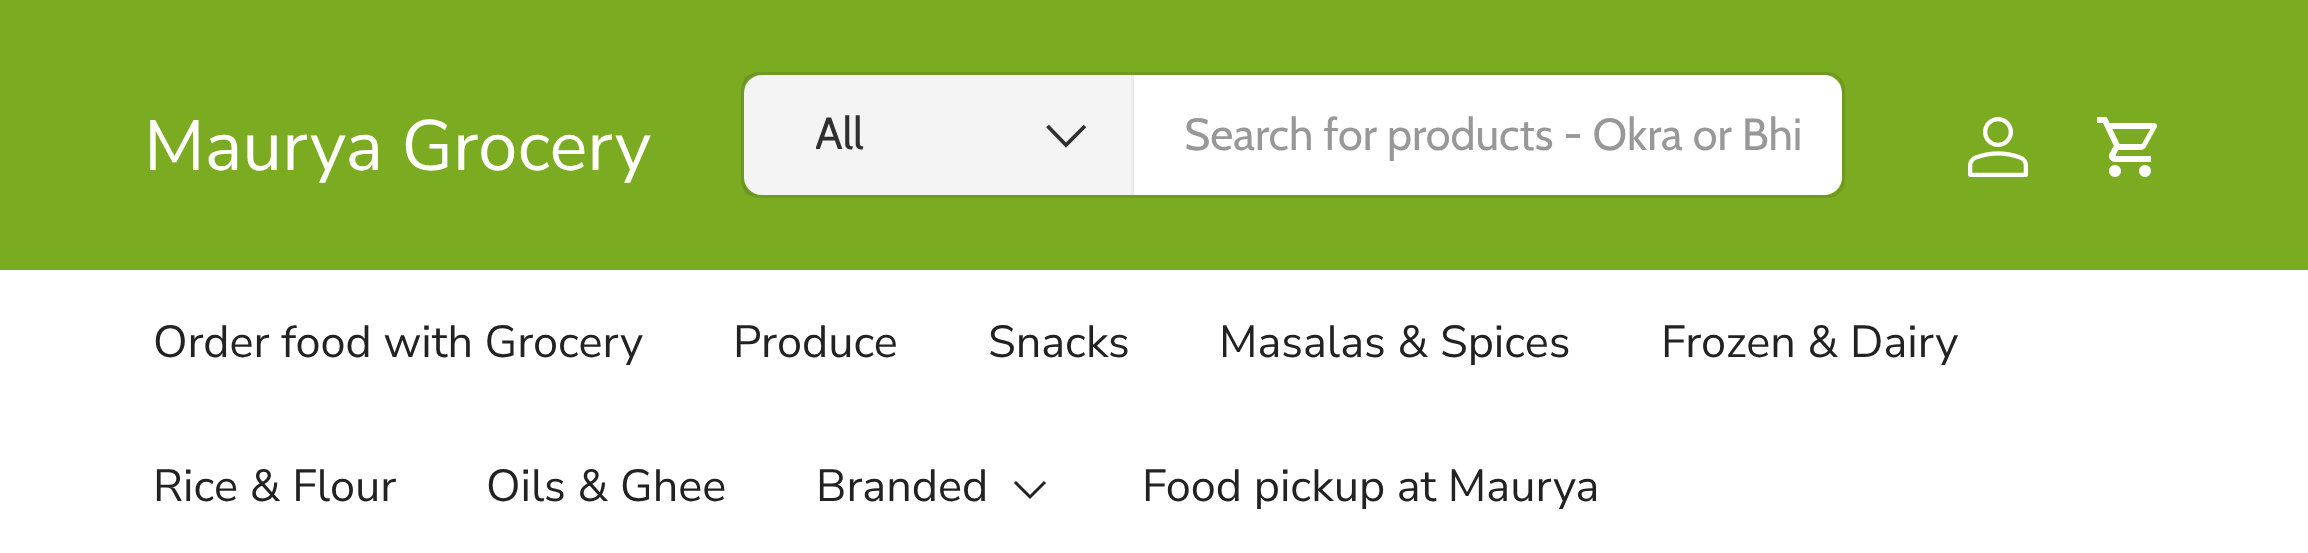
(async () => {
    const canvas = document.querySelector("canvas");
    canvas.width = 2308;
    canvas.height = 553;
    const context = canvas.getContext("2d");
    context.miterLimit = 4;
    context.fontKerning = "normal";
    function write(s, x, y, font, color) {
        context.font = font;
        context.fillStyle = color;
        context.fillText(s, x, y);
    }
    function block(x, y, w, h, color) {
        context.fillStyle = color;
        context.fillRect(x, y, w, h);
    }
    function card(x, y, w, h, r, color) {
        context.fillStyle = color;
        context.beginPath();
        context.roundRect(x, y, w, h, r);
        context.fill();
    }
    async function photo(src, x, y, w, h) {
        const img = new Image();
        img.src = src;
        await img.decode();
        context.drawImage(img, x, y, w, h);
    }

    block(0, 0, 2308, 553, "rgb(123, 171, 32)");
    write("Maurya Grocery", 144, 170, "71px Nunito Sans", "rgb(255, 255, 255)");
    context.beginPath();
    context.roundRect(742.5, 73.5, 1101, 123, 16.5);
    context.strokeStyle = "rgb(112, 153, 34)";
    context.lineWidth = 3;
    context.stroke();
    card(744, 75, 1098, 120, 18, "rgb(255, 255, 255)");
    block(744, 75, 387, 120, "rgba(48, 48, 48, 0.05)");
    block(1131, 75, 3, 120, "rgb(235, 235, 235)");
    context.save();
    context.beginPath();
    context.rect(816, 102, 48, 66);
    context.clip();
    write("All", 815, 149, "45px Cabin", "rgb(48, 48, 48)");
    context.restore();
    context.beginPath();
    context.moveTo(1085, 126);
    context.lineTo(1066, 145);
    context.lineTo(1047.5, 126);
    context.strokeStyle = "rgb(48, 48, 48)";
    context.lineWidth = 3.8;
    context.stroke();
    write("Search for products - Okra or Bhi", 1184, 150, "45px Cabin", "rgb(152, 152, 152)");
    await photo("media/1.png", 1968, 117, 60, 60);
    await photo("media/2.png", 2097, 117, 60, 60);
    block(0, 270, 2308, 283, "rgb(255, 255, 255)");
    write("Order food with Grocery", 153, 357, "45px Nunito Sans", "rgb(34, 34, 34)");
    write("Produce", 733, 357, "45px Nunito Sans", "rgb(34, 34, 34)");
    write("Snacks", 988, 357, "45px Nunito Sans", "rgb(34, 34, 34)");
    write("Masalas & Spices", 1219, 357, "45px Nunito Sans", "rgb(34, 34, 34)");
    write("Frozen & Dairy", 1661, 357, "45px Nunito Sans", "rgb(34, 34, 34)");
    write("Rice & Flour", 153, 501, "45px Nunito Sans", "rgb(34, 34, 34)");
    write("Oils & Ghee", 486, 501, "45px Nunito Sans", "rgb(34, 34, 34)");
    write("Branded", 816, 501, "45px Nunito Sans", "rgb(34, 34, 34)");
    context.beginPath();
    context.moveTo(1045, 482);
    context.lineTo(1030, 497);
    context.lineTo(1015, 482);
    context.strokeStyle = "rgb(34, 34, 34)";
    context.lineWidth = 3;
    context.stroke();
    write("Food pickup at Maurya", 1142, 501, "45px Nunito Sans", "rgb(34, 34, 34)");
})();
